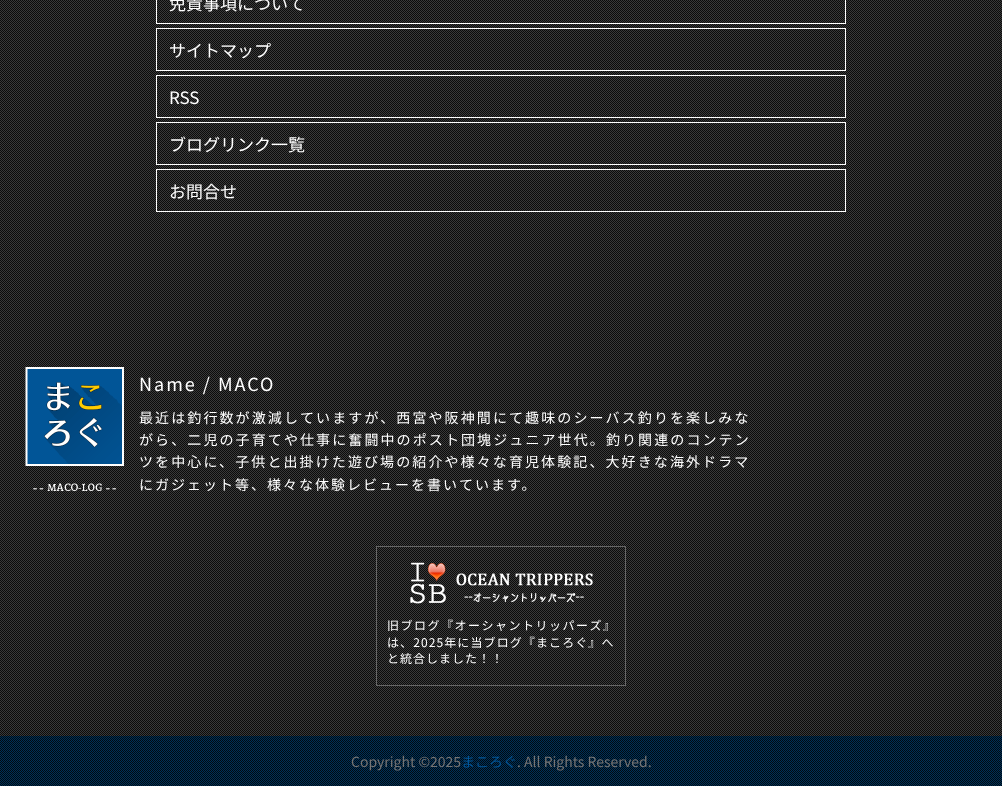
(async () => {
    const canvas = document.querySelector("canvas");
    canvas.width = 1002;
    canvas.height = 786;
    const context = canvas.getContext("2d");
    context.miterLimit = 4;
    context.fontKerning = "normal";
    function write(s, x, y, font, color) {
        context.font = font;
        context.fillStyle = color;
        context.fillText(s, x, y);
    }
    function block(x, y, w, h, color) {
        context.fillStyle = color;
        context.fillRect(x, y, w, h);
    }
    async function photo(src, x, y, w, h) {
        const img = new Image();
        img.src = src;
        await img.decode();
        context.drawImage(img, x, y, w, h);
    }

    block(0, 0, 1002, 786, "rgb(102, 102, 102)");
    await photo("media/1.png", 0, 0, 1002, 316);
    context.strokeStyle = "rgb(255, 255, 255)";
    context.strokeRect(156.5, -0.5, 689, 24);
    write("免責事項について", 169, 10, "17px Noto Sans JP", "rgb(255, 255, 255)");
    context.strokeRect(156.5, 28.5, 689, 42);
    write("サイトマップ", 169, 57, "17px Noto Sans JP", "rgb(255, 255, 255)");
    context.strokeRect(156.5, 75.5, 689, 42);
    write("RSS", 169, 104, "17px Noto Sans JP", "rgb(255, 255, 255)");
    context.strokeRect(156.5, 122.5, 689, 42);
    write("ブログリンク一覧", 169, 151, "17px Noto Sans JP", "rgb(255, 255, 255)");
    context.strokeRect(156.5, 169.5, 689, 42);
    write("お問合せ", 169, 198, "17px Noto Sans JP", "rgb(255, 255, 255)");
    await photo("media/2.png", 0, 316, 1002, 420);
    await photo("media/3.png", 25, 367, 99, 124);
    context.letterSpacing = "2px";
    write("Name / MACO", 139, 391, "18px Noto Sans JP", "rgb(255, 255, 255)");
    context.letterSpacing = "2.1px";
    write("最近は釣行数が激減していますが、西宮や阪神間にて趣味のシーバス釣りを楽しみな", 139, 423, "14px Noto Sans JP", "rgb(255, 255, 255)");
    write("がら、二児の子育てや仕事に奮闘中のポスト団塊ジュニア世代。釣り関連のコンテン", 139, 445, "14px Noto Sans JP", "rgb(255, 255, 255)");
    write("ツを中心に、子供と出掛けた遊び場の紹介や様々な育児体験記、大好きな海外ドラマ", 139, 467, "14px Noto Sans JP", "rgb(255, 255, 255)");
    context.letterSpacing = "2px";
    write("にガジェット等、様々な体験レビューを書いています。", 139, 490, "14px Noto Sans JP", "rgb(255, 255, 255)");
    await photo("media/4.png", 410, 562, 183, 42);
    context.strokeStyle = "rgb(102, 102, 102)";
    context.strokeRect(376.5, 546.5, 249, 139);
    context.letterSpacing = "1.5px";
    write("旧ブログ『オーシャントリッパーズ』", 387, 630, "12px Noto Sans JP", "rgb(255, 255, 255)");
    context.letterSpacing = "1.1px";
    write("は、2025年に当ブログ『まころぐ』へ", 387, 647, "12px Noto Sans JP", "rgb(255, 255, 255)");
    context.letterSpacing = "1px";
    write("と統合しました！！", 387, 663, "12px Noto Sans JP", "rgb(255, 255, 255)");
    block(0, 736, 1002, 50, "rgb(1, 87, 155)");
    await photo("media/5.png", 0, 736, 1002, 50);
    context.letterSpacing = "0px";
    write("Copyright ©2025", 351, 767, "14px Noto Sans JP", "rgb(117, 117, 117)");
    write("まころぐ", 461, 767, "14px Noto Sans JP", "rgb(1, 87, 155)");
    write(". All Rights Reserved.", 517, 767, "14px Noto Sans JP", "rgb(117, 117, 117)");
})();
